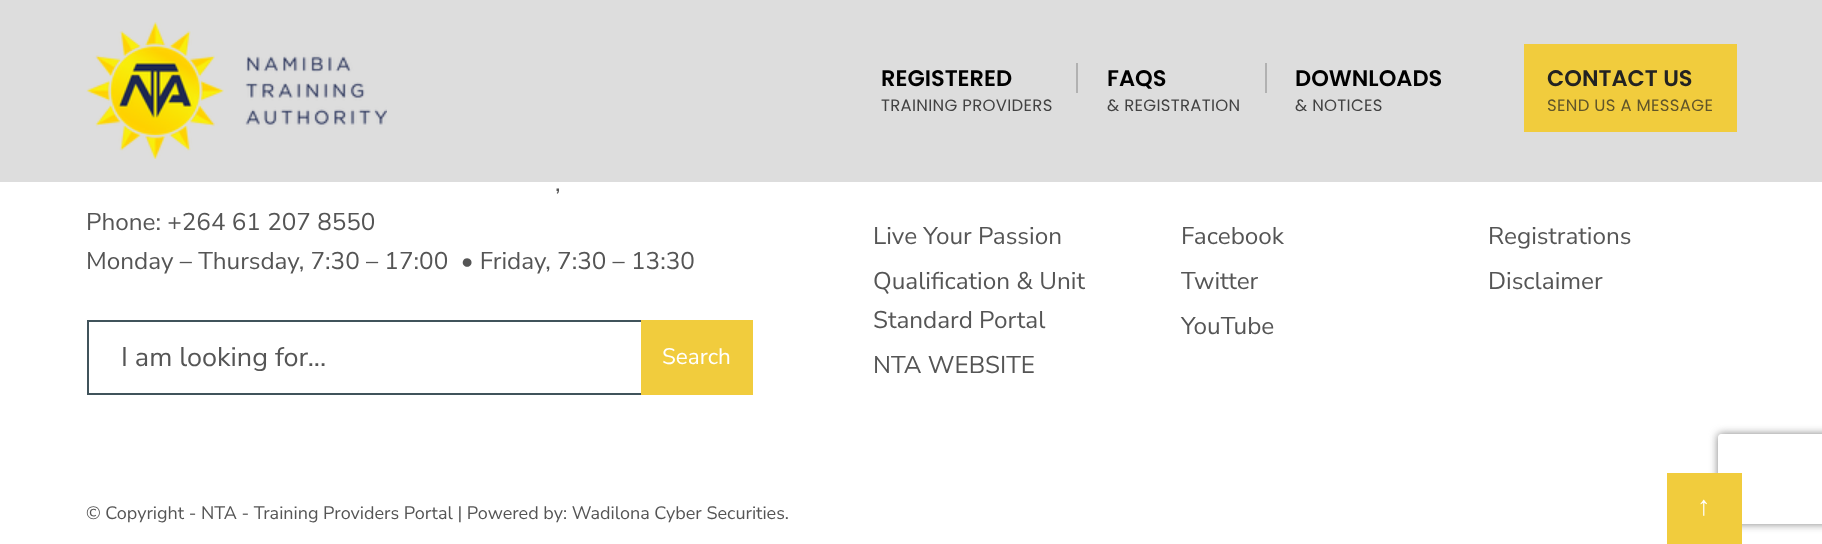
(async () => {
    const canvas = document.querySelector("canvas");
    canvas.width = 1822;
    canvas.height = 544;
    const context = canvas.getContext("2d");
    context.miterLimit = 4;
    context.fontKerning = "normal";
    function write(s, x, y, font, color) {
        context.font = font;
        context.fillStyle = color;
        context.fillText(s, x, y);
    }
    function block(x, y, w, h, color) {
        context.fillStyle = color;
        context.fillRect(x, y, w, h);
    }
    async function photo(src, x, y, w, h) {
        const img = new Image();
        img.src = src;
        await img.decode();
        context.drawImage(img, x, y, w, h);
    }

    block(0, 0, 1822, 544, "rgb(255, 255, 255)");
    block(0, 0, 1822, 182, "rgb(221, 221, 221)");
    await photo("media/1.png", 86, 22, 301, 137);
    write("REGISTERED", 881, 86, "600 22.5px Poppins", "rgb(0, 0, 0)");
    context.letterSpacing = "0.3px";
    write("TRAINING PROVIDERS", 881, 111, "16.5px Poppins", "rgb(66, 66, 66)");
    block(1076, 63, 2, 30, "rgb(177, 177, 177)");
    context.letterSpacing = "0px";
    write("FAQS", 1107, 86, "600 22.5px Poppins", "rgb(0, 0, 0)");
    context.letterSpacing = "0.3px";
    write("& REGISTRATION", 1107, 111, "16.5px Poppins", "rgb(66, 66, 66)");
    block(1265, 63, 2, 30, "rgb(177, 177, 177)");
    context.letterSpacing = "0px";
    write("DOWNLOADS", 1295, 86, "600 22.5px Poppins", "rgb(0, 0, 0)");
    context.letterSpacing = "0.3px";
    write("& NOTICES", 1295, 111, "16.5px Poppins", "rgb(66, 66, 66)");
    block(1524, 44, 213, 88, "rgb(241, 204, 61)");
    context.letterSpacing = "0px";
    write("CONTACT US", 1547, 86, "600 22.5px Poppins", "rgb(34, 34, 34)");
    context.letterSpacing = "0.3px";
    write("SEND US A MESSAGE", 1547, 111, "16.5px Poppins", "rgb(96, 85, 42)");
    context.letterSpacing = "0px";
    write(",", 555, 191, "24.3px Nunito Sans", "rgb(85, 85, 85)");
    write("Phone: +264 61 207 8550", 86, 230, "24.3px Nunito Sans", "rgb(85, 85, 85)");
    write("Monday – Thursday, 7:30 – 17:00  • Friday, 7:30 – 13:30", 86, 269, "24.3px Nunito Sans", "rgb(85, 85, 85)");
    context.strokeStyle = "rgb(64, 83, 91)";
    context.lineWidth = 2;
    context.strokeRect(88, 321, 664, 73);
    write("I am looking for...", 121, 366, "27px Nunito Sans", "rgb(85, 85, 85)");
    block(641, 320, 112, 75, "rgb(241, 204, 61)");
    write("Search", 662, 364, "22.5px Nunito Sans", "rgb(255, 255, 255)");
    write("Live Your Passion", 873, 244, "24.3px Nunito Sans", "rgb(85, 85, 85)");
    write("Qualification & Unit", 873, 289, "24.3px Nunito Sans", "rgb(85, 85, 85)");
    write("Standard Portal", 873, 328, "24.3px Nunito Sans", "rgb(85, 85, 85)");
    write("NTA WEBSITE", 873, 373, "24.3px Nunito Sans", "rgb(85, 85, 85)");
    write("Facebook", 1181, 244, "24.3px Nunito Sans", "rgb(85, 85, 85)");
    write("Twitter", 1181, 289, "24.3px Nunito Sans", "rgb(85, 85, 85)");
    write("YouTube", 1181, 334, "24.3px Nunito Sans", "rgb(85, 85, 85)");
    write("Registrations", 1488, 244, "24.3px Nunito Sans", "rgb(85, 85, 85)");
    write("Disclaimer", 1488, 289, "24.3px Nunito Sans", "rgb(85, 85, 85)");
    write("© Copyright - NTA - Training Providers Portal | Powered by: Wadilona Cyber Securities.", 86, 519, "18px Nunito Sans", "rgb(85, 85, 85)");
    context.save();
    context.beginPath();
    context.moveTo(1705, 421);
    context.lineTo(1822, 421);
    context.lineTo(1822, 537);
    context.lineTo(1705, 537);
    context.closePath();
    context.moveTo(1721, 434);
    context.lineTo(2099, 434);
    context.bezierCurveTo(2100.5, 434, 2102, 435.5, 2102, 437);
    context.lineTo(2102, 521);
    context.bezierCurveTo(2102, 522.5, 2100.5, 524, 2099, 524);
    context.lineTo(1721, 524);
    context.bezierCurveTo(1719.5, 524, 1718, 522.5, 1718, 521);
    context.lineTo(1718, 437);
    context.bezierCurveTo(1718, 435.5, 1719.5, 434, 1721, 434);
    context.closePath();
    context.clip("evenodd");
    context.fillStyle = "rgb(128, 128, 128)";
    context.filter = "blur(4px)";
    context.beginPath();
    context.roundRect(1718, 434, 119, 90, 3);
    context.fill();
    context.filter = "none";
    context.restore();
    block(1667, 473, 75, 71, "rgb(241, 204, 61)");
    write("↑", 1697, 515, "27px Liberation Serif", "rgb(255, 255, 255)");
})();
